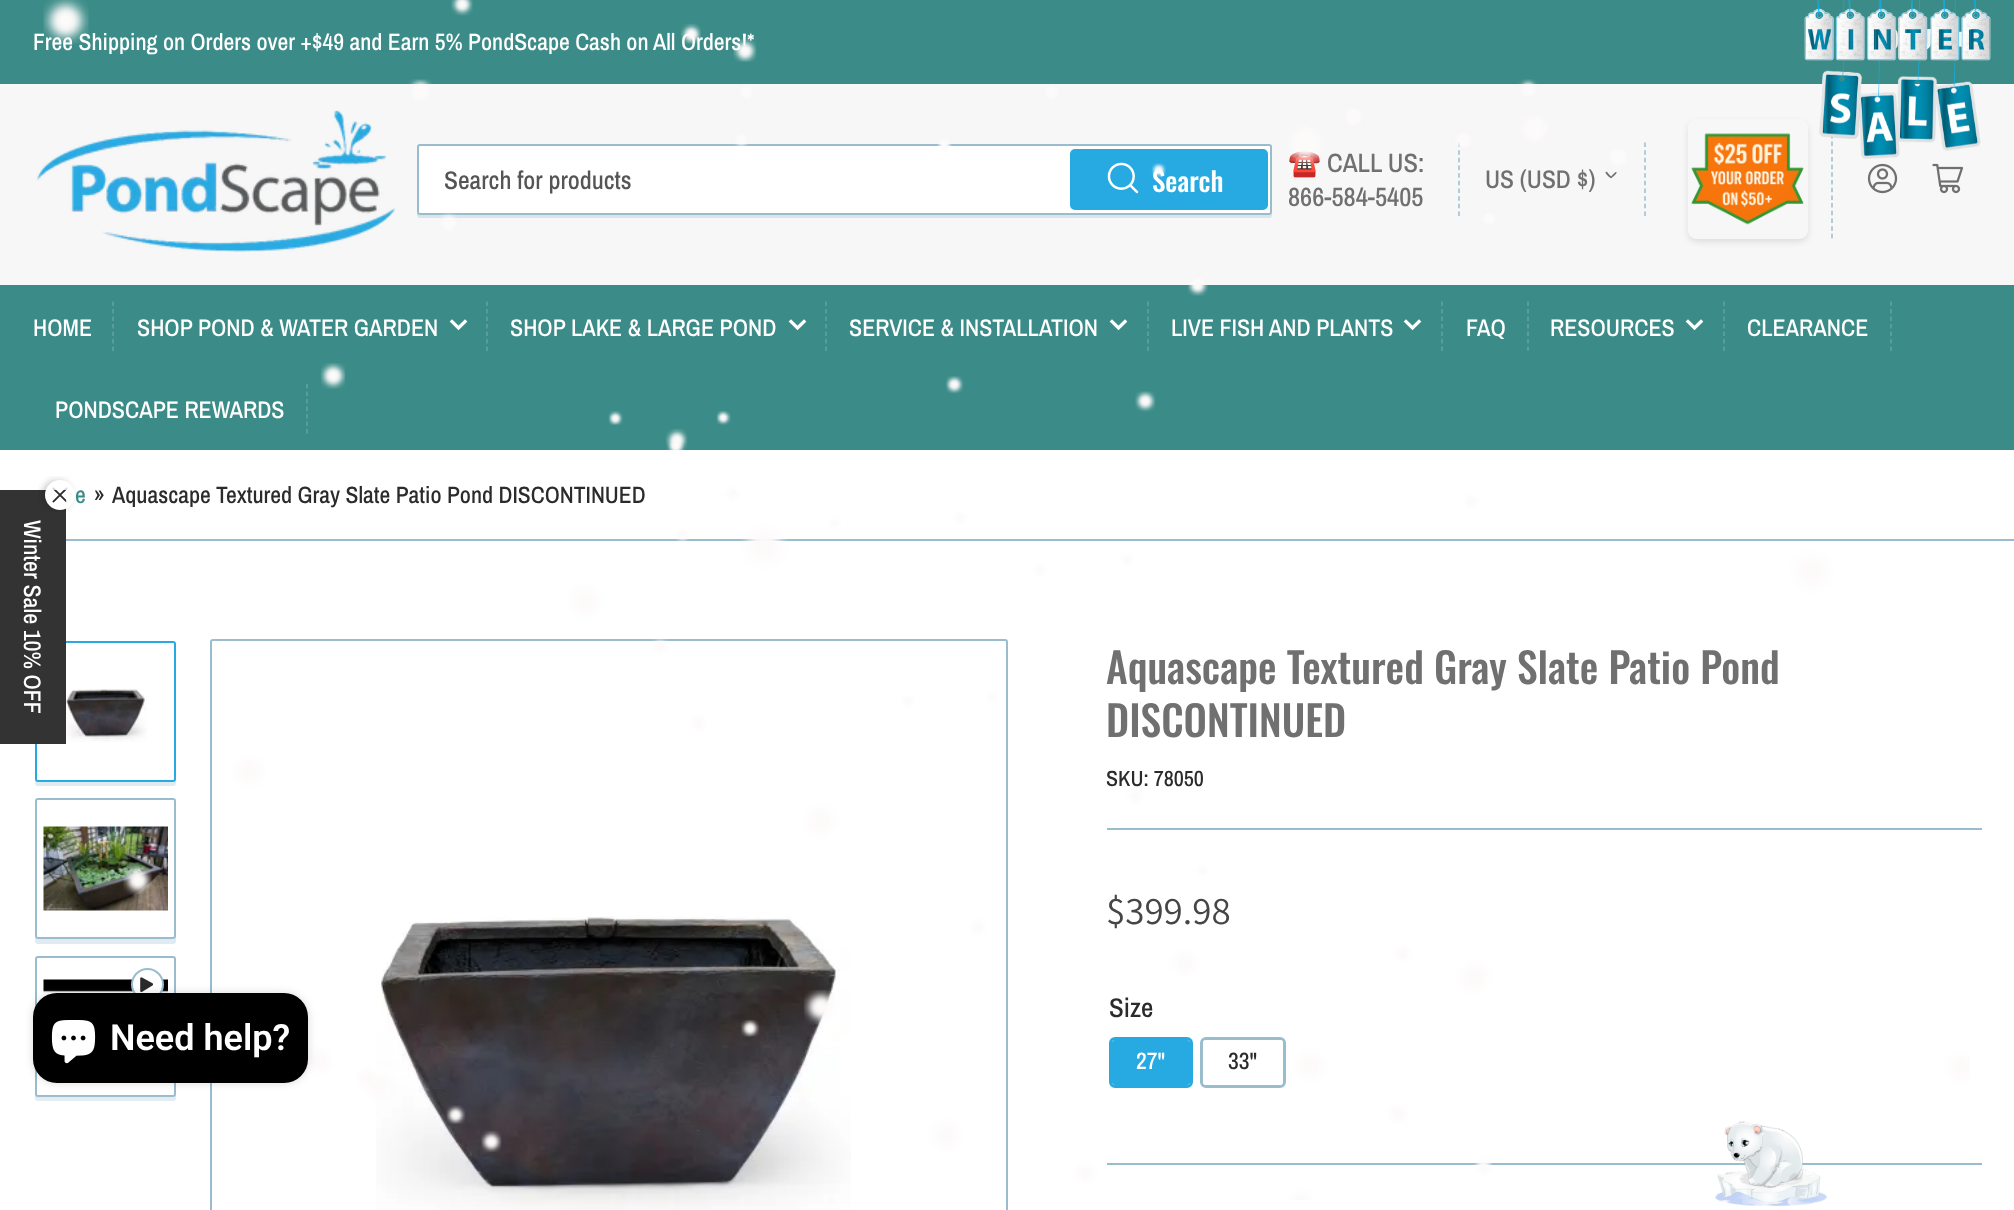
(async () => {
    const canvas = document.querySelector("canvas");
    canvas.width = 2014;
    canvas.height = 1210;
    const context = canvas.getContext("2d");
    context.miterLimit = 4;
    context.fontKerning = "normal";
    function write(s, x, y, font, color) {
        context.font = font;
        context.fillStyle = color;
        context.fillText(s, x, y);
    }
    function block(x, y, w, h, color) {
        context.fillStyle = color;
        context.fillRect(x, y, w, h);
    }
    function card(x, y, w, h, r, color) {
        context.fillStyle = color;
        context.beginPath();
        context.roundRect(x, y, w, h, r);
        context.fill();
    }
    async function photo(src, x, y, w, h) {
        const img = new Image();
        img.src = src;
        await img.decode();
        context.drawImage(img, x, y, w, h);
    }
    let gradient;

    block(0, 0, 2014, 1210, "rgb(255, 255, 255)");
    block(0, 0, 2014, 84, "rgb(59, 140, 136)");
    write("Free Shipping on Orders over +$49 and Earn 5% PondScape Cash on All Orders!*", 33, 50, "500 23.6px Archivo Narrow", "rgb(255, 255, 255)");
    await photo("media/2.png", 1836, 35, 1, 9);
    await photo("media/3.png", 1895, 29, 3, 20);
    await photo("media/4.png", 1926, 29, 6, 21);
    await photo("media/5.png", 1958, 31, 5, 16);
    block(0, 84, 2014, 201, "rgb(247, 247, 247)");
    await photo("media/7.png", 36, 110, 360, 142);
    context.fillStyle = "rgba(153, 189, 207, 0.3)";
    context.beginPath();
    context.moveTo(417, 212);
    context.lineTo(417, 215);
    context.bezierCurveTo(417, 217, 418, 218, 420, 218);
    context.lineTo(1269, 218);
    context.bezierCurveTo(1271, 218, 1272, 217, 1272, 215);
    context.lineTo(1272, 212);
    context.bezierCurveTo(1272, 213, 1271, 214, 1269, 214);
    context.lineTo(420, 214);
    context.bezierCurveTo(418, 214, 417, 213, 417, 212);
    context.closePath();
    context.fill();
    context.fillStyle = "rgb(255, 255, 255)";
    context.beginPath();
    context.roundRect(418, 145, 853, 69, 2);
    context.fill();
    context.strokeStyle = "rgb(153, 189, 207)";
    context.lineWidth = 2;
    context.stroke();
    write("Search for products", 444, 189, "500 25.5px Archivo Narrow", "rgb(85, 85, 85)");
    context.beginPath();
    context.roundRect(1071, 150, 196, 59, 4);
    context.strokeStyle = "rgb(39, 170, 225)";
    context.stroke();
    card(1071, 150, 195, 59, 3, "rgb(39, 170, 225)");
    await photo("media/8.png", 1107, 162, 32, 32);
    write("Search", 1152, 192, "500 27px Oswald", "rgb(255, 255, 255)");
    write("☎️", 1288, 172, "26.5px Noto Color Emoji", "rgb(112, 112, 112)");
    write("CALL US:", 1327, 172, "500 26.5px Archivo Narrow", "rgb(112, 112, 112)");
    write("866-584-5405", 1288, 206, "500 26.5px Archivo Narrow", "rgb(112, 112, 112)");
    context.beginPath();
    context.moveTo(1645, 142.5);
    context.lineTo(1645, 216);
    context.strokeStyle = "rgb(153, 189, 207)";
    context.lineWidth = 1.5;
    context.setLineDash([4.5, 3.17]);
    context.stroke();
    context.beginPath();
    context.moveTo(1459, 142.5);
    context.lineTo(1459, 216);
    context.stroke();
    write("US (USD $)", 1485, 188, "500 25.5px Archivo Narrow", "rgb(112, 112, 112)");
    context.beginPath();
    context.moveTo(1607, 172);
    context.lineTo(1610.5, 176);
    context.bezierCurveTo(1612, 177.5, 1612, 178.5, 1610.5, 178);
    context.lineTo(1608.5, 176.5);
    context.bezierCurveTo(1608, 176, 1605.5, 173.5, 1605.5, 172.5);
    context.bezierCurveTo(1605.5, 172, 1606.5, 171.5, 1607, 172);
    context.closePath();
    context.fill();
    context.beginPath();
    context.moveTo(1610.5, 177);
    context.lineTo(1614.5, 173);
    context.bezierCurveTo(1615.5, 171.5, 1617, 171.5, 1616.5, 173);
    context.lineTo(1615, 175);
    context.bezierCurveTo(1614, 175.5, 1612, 178, 1611, 178);
    context.bezierCurveTo(1610.5, 178, 1610, 177.5, 1610.5, 177);
    context.closePath();
    context.fill();
    context.beginPath();
    context.moveTo(1832, 118.5);
    context.lineTo(1832, 238.5);
    context.setLineDash([4.5, 3.19]);
    context.stroke();
    context.save();
    context.beginPath();
    context.moveTo(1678, 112);
    context.lineTo(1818, 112);
    context.lineTo(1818, 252);
    context.lineTo(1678, 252);
    context.closePath();
    context.moveTo(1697, 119);
    context.lineTo(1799, 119);
    context.bezierCurveTo(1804, 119, 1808, 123, 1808, 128);
    context.lineTo(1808, 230);
    context.bezierCurveTo(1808, 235, 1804, 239, 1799, 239);
    context.lineTo(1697, 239);
    context.bezierCurveTo(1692, 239, 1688, 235, 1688, 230);
    context.lineTo(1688, 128);
    context.bezierCurveTo(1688, 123, 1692, 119, 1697, 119);
    context.closePath();
    context.clip("evenodd");
    context.fillStyle = "rgba(0, 0, 0, 0.1)";
    context.filter = "blur(3px)";
    context.beginPath();
    context.roundRect(1688, 122, 120, 120, 9);
    context.fill();
    context.filter = "none";
    context.restore();
    await photo("media/9.png", 1691, 133, 113, 92);
    await photo("media/10.png", 1867, 163, 31, 31);
    await photo("media/11.png", 1932, 163, 32, 31);
    block(0, 285, 2014, 165, "rgb(59, 140, 136)");
    write("HOME", 33, 336, "500 24px Archivo Narrow", "rgb(255, 255, 255)");
    context.beginPath();
    context.moveTo(113, 301.5);
    context.lineTo(113, 351);
    context.strokeStyle = "rgb(98, 163, 160)";
    context.setLineDash([4.5, 3]);
    context.stroke();
    write("SHOP POND & WATER GARDEN", 137, 336, "500 24px Archivo Narrow", "rgb(255, 255, 255)");
    context.beginPath();
    context.moveTo(465, 321.5);
    context.lineTo(458.5, 328);
    context.lineTo(452, 321.5);
    context.strokeStyle = "rgb(255, 255, 255)";
    context.lineWidth = 3.3;
    context.lineCap = "square";
    context.setLineDash([]);
    context.stroke();
    context.beginPath();
    context.moveTo(487, 301.5);
    context.lineTo(487, 351);
    context.strokeStyle = "rgb(98, 163, 160)";
    context.lineWidth = 1.5;
    context.lineCap = "butt";
    context.setLineDash([4.5, 3]);
    context.stroke();
    write("SHOP LAKE & LARGE POND", 510, 336, "500 24px Archivo Narrow", "rgb(255, 255, 255)");
    context.beginPath();
    context.moveTo(804, 321.5);
    context.lineTo(797.5, 328);
    context.lineTo(791, 321.5);
    context.strokeStyle = "rgb(255, 255, 255)";
    context.lineWidth = 3.3;
    context.lineCap = "square";
    context.setLineDash([]);
    context.stroke();
    context.beginPath();
    context.moveTo(826, 301.5);
    context.lineTo(826, 351);
    context.strokeStyle = "rgb(98, 163, 160)";
    context.lineWidth = 1.5;
    context.lineCap = "butt";
    context.setLineDash([4.5, 3]);
    context.stroke();
    write("SERVICE & INSTALLATION", 849, 336, "500 24px Archivo Narrow", "rgb(255, 255, 255)");
    context.beginPath();
    context.moveTo(1125, 321.5);
    context.lineTo(1118.5, 328);
    context.lineTo(1112, 321.5);
    context.strokeStyle = "rgb(255, 255, 255)";
    context.lineWidth = 3.3;
    context.lineCap = "square";
    context.setLineDash([]);
    context.stroke();
    context.beginPath();
    context.moveTo(1148, 301.5);
    context.lineTo(1148, 351);
    context.strokeStyle = "rgb(98, 163, 160)";
    context.lineWidth = 1.5;
    context.lineCap = "butt";
    context.setLineDash([4.5, 3]);
    context.stroke();
    write("LIVE FISH AND PLANTS", 1171, 336, "500 24px Archivo Narrow", "rgb(255, 255, 255)");
    context.beginPath();
    context.moveTo(1419, 321.5);
    context.lineTo(1412.5, 328);
    context.lineTo(1406, 321.5);
    context.strokeStyle = "rgb(255, 255, 255)";
    context.lineWidth = 3.3;
    context.lineCap = "square";
    context.setLineDash([]);
    context.stroke();
    context.beginPath();
    context.moveTo(1442, 301.5);
    context.lineTo(1442, 351);
    context.strokeStyle = "rgb(98, 163, 160)";
    context.lineWidth = 1.5;
    context.lineCap = "butt";
    context.setLineDash([4.5, 3]);
    context.stroke();
    write("FAQ", 1466, 336, "500 24px Archivo Narrow", "rgb(255, 255, 255)");
    context.beginPath();
    context.moveTo(1528, 301.5);
    context.lineTo(1528, 351);
    context.stroke();
    write("RESOURCES", 1550, 336, "500 24px Archivo Narrow", "rgb(255, 255, 255)");
    context.beginPath();
    context.moveTo(1701, 321.5);
    context.lineTo(1694.5, 328);
    context.lineTo(1688, 321.5);
    context.strokeStyle = "rgb(255, 255, 255)";
    context.lineWidth = 3.3;
    context.lineCap = "square";
    context.setLineDash([]);
    context.stroke();
    context.beginPath();
    context.moveTo(1724, 301.5);
    context.lineTo(1724, 351);
    context.strokeStyle = "rgb(98, 163, 160)";
    context.lineWidth = 1.5;
    context.lineCap = "butt";
    context.setLineDash([4.5, 3]);
    context.stroke();
    write("CLEARANCE", 1747, 336, "500 24px Archivo Narrow", "rgb(255, 255, 255)");
    context.beginPath();
    context.moveTo(1891, 301.5);
    context.lineTo(1891, 351);
    context.stroke();
    write("PONDSCAPE REWARDS", 55, 418, "500 24px Archivo Narrow", "rgb(255, 255, 255)");
    context.beginPath();
    context.moveTo(307, 384);
    context.lineTo(307, 433.5);
    context.stroke();
    block(66, 539, 1948, 2, "rgb(153, 189, 207)");
    write("e", 75, 503, "500 23.6px Archivo Narrow", "rgb(59, 140, 136)");
    write("»", 94, 503, "500 23.6px Archivo Narrow", "rgb(43, 43, 43)");
    write("Aquascape Textured Gray Slate Patio Pond DISCONTINUED", 112, 503, "500 23.6px Archivo Narrow", "rgb(43, 43, 43)");
    context.fillStyle = "rgb(224, 235, 241)";
    context.beginPath();
    context.moveTo(35, 780);
    context.lineTo(35, 783);
    context.bezierCurveTo(35, 785, 36, 786, 38, 786);
    context.lineTo(173, 786);
    context.bezierCurveTo(175, 786, 176, 785, 176, 783);
    context.lineTo(176, 648);
    context.lineTo(176, 646);
    context.lineTo(176, 778);
    context.bezierCurveTo(176, 780, 174, 782, 172, 782);
    context.lineTo(38, 782);
    context.bezierCurveTo(36, 782, 36, 781, 35, 780);
    context.closePath();
    context.fill();
    context.fillStyle = "rgb(255, 255, 255)";
    context.beginPath();
    context.roundRect(36, 642, 139, 139, 2);
    context.fill();
    context.strokeStyle = "rgb(39, 170, 225)";
    context.lineWidth = 2;
    context.setLineDash([]);
    context.stroke();
    await photo("media/13.png", 66, 689, 81, 53);
    context.fillStyle = "rgb(224, 235, 241)";
    context.beginPath();
    context.moveTo(35, 938);
    context.lineTo(35, 941);
    context.bezierCurveTo(35, 943, 36, 944, 38, 944);
    context.lineTo(173, 944);
    context.bezierCurveTo(175, 944, 176, 943, 176, 941);
    context.lineTo(176, 806);
    context.lineTo(176, 804);
    context.lineTo(176, 936);
    context.bezierCurveTo(176, 938, 174, 939, 172, 939);
    context.lineTo(38, 939);
    context.bezierCurveTo(36, 939, 36, 938, 35, 938);
    context.closePath();
    context.fill();
    context.fillStyle = "rgb(255, 255, 255)";
    context.beginPath();
    context.roundRect(36, 799, 139, 139, 2);
    context.fill();
    context.strokeStyle = "rgb(153, 189, 207)";
    context.stroke();
    await photo("media/14.png", 43, 826, 125, 85);
    context.fillStyle = "rgb(224, 235, 241)";
    context.beginPath();
    context.moveTo(35, 1095);
    context.lineTo(35, 1098);
    context.bezierCurveTo(35, 1100, 36, 1101, 38, 1101);
    context.lineTo(173, 1101);
    context.bezierCurveTo(175, 1101, 176, 1100, 176, 1098);
    context.lineTo(176, 963);
    context.lineTo(176, 961);
    context.lineTo(176, 1094);
    context.bezierCurveTo(176, 1095, 174, 1096, 172, 1096);
    context.lineTo(38, 1096);
    context.bezierCurveTo(36, 1096, 36, 1096, 35, 1095);
    context.closePath();
    context.fill();
    context.fillStyle = "rgb(255, 255, 255)";
    context.beginPath();
    context.roundRect(36, 957, 139, 139, 2);
    context.fill();
    context.stroke();
    await photo("media/16.png", 43, 979, 125, 19);
    context.beginPath();
    context.arc(147.5, 984.5, 15.5, 0, Math.PI * 2);
    context.fill();
    context.stroke();
    await photo("media/15.png", 140, 977, 13, 15);
    gradient = context.createLinearGradient(105, 1148, 105, 1095);
    gradient.addColorStop(0, "rgb(255, 255, 255)");
    gradient.addColorStop(1, "rgba(255, 255, 255, 0)");
    context.fillStyle = gradient;
    context.fillRect(36, 1096, 139, 5);
    context.beginPath();
    context.roundRect(211, 640, 796, 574, 2);
    context.stroke();
    await photo("media/17.png", 376, 916, 475, 294);
    block(1107, 828, 875, 2, "rgb(153, 189, 207)");
    write("Aquascape Textured Gray Slate Patio Pond", 1106, 684, "500 41.6px Oswald", "rgb(112, 112, 112)");
    write("DISCONTINUED", 1106, 737, "500 41.6px Oswald", "rgb(112, 112, 112)");
    write("SKU: 78050", 1106, 786, "500 22px Archivo Narrow", "rgb(43, 43, 43)");
    write("$399.98", 1106, 924, "39px Assistant", "rgb(71, 69, 69)");
    write("Size", 1109, 1017, "500 27px Archivo Narrow", "rgb(43, 43, 43)");
    context.beginPath();
    context.roundRect(1110.5, 1038.5, 81, 48, 4.5);
    context.strokeStyle = "rgb(39, 170, 225)";
    context.lineWidth = 3;
    context.stroke();
    card(1112, 1040, 78, 45, 3, "rgb(39, 170, 225)");
    write("27\"", 1136, 1069, "500 23.6px Archivo Narrow", "rgb(255, 255, 255)");
    context.beginPath();
    context.roundRect(1201.5, 1038.5, 83, 48, 4.5);
    context.strokeStyle = "rgb(153, 189, 207)";
    context.stroke();
    card(1203, 1040, 80, 45, 3, "rgb(255, 255, 255)");
    write("33\"", 1228, 1069, "500 23.6px Archivo Narrow", "rgb(43, 43, 43)");
    block(1107, 1163, 875, 2, "rgb(153, 189, 207)");
    await photo("media/1.png", 43, 0, 1927, 1200);
    await photo("media/6.png", 1804, 0, 187, 159);
    block(0, 490, 66, 254, "rgb(51, 51, 51)");
    await photo("media/12.png", 38, 476, 38, 36);
    context.font = "500 24px Archivo Narrow";
    context.fillStyle = "rgb(255, 255, 255)";
    context.save();
    context.translate(24, 520);
    context.rotate(90 * Math.PI / 180);
    context.fillText("Winter Sale 10% OFF", 0, 0);
    context.restore();
    context.fillStyle = "rgba(0, 0, 0, 0.15)";
    context.filter = "blur(4px)";
    context.beginPath();
    context.roundRect(33, 993, 275, 90, 24);
    context.fill();
    context.filter = "none";
    card(33, 993, 275, 90, 24, "rgb(0, 0, 0)");
    await photo("media/18.png", 51, 1020, 45, 44);
    write("Need help?", 110, 1050, "600 36px Roboto", "rgb(255, 255, 255)");
    await photo("media/19.png", 1714, 1121, 113, 85);
})();
